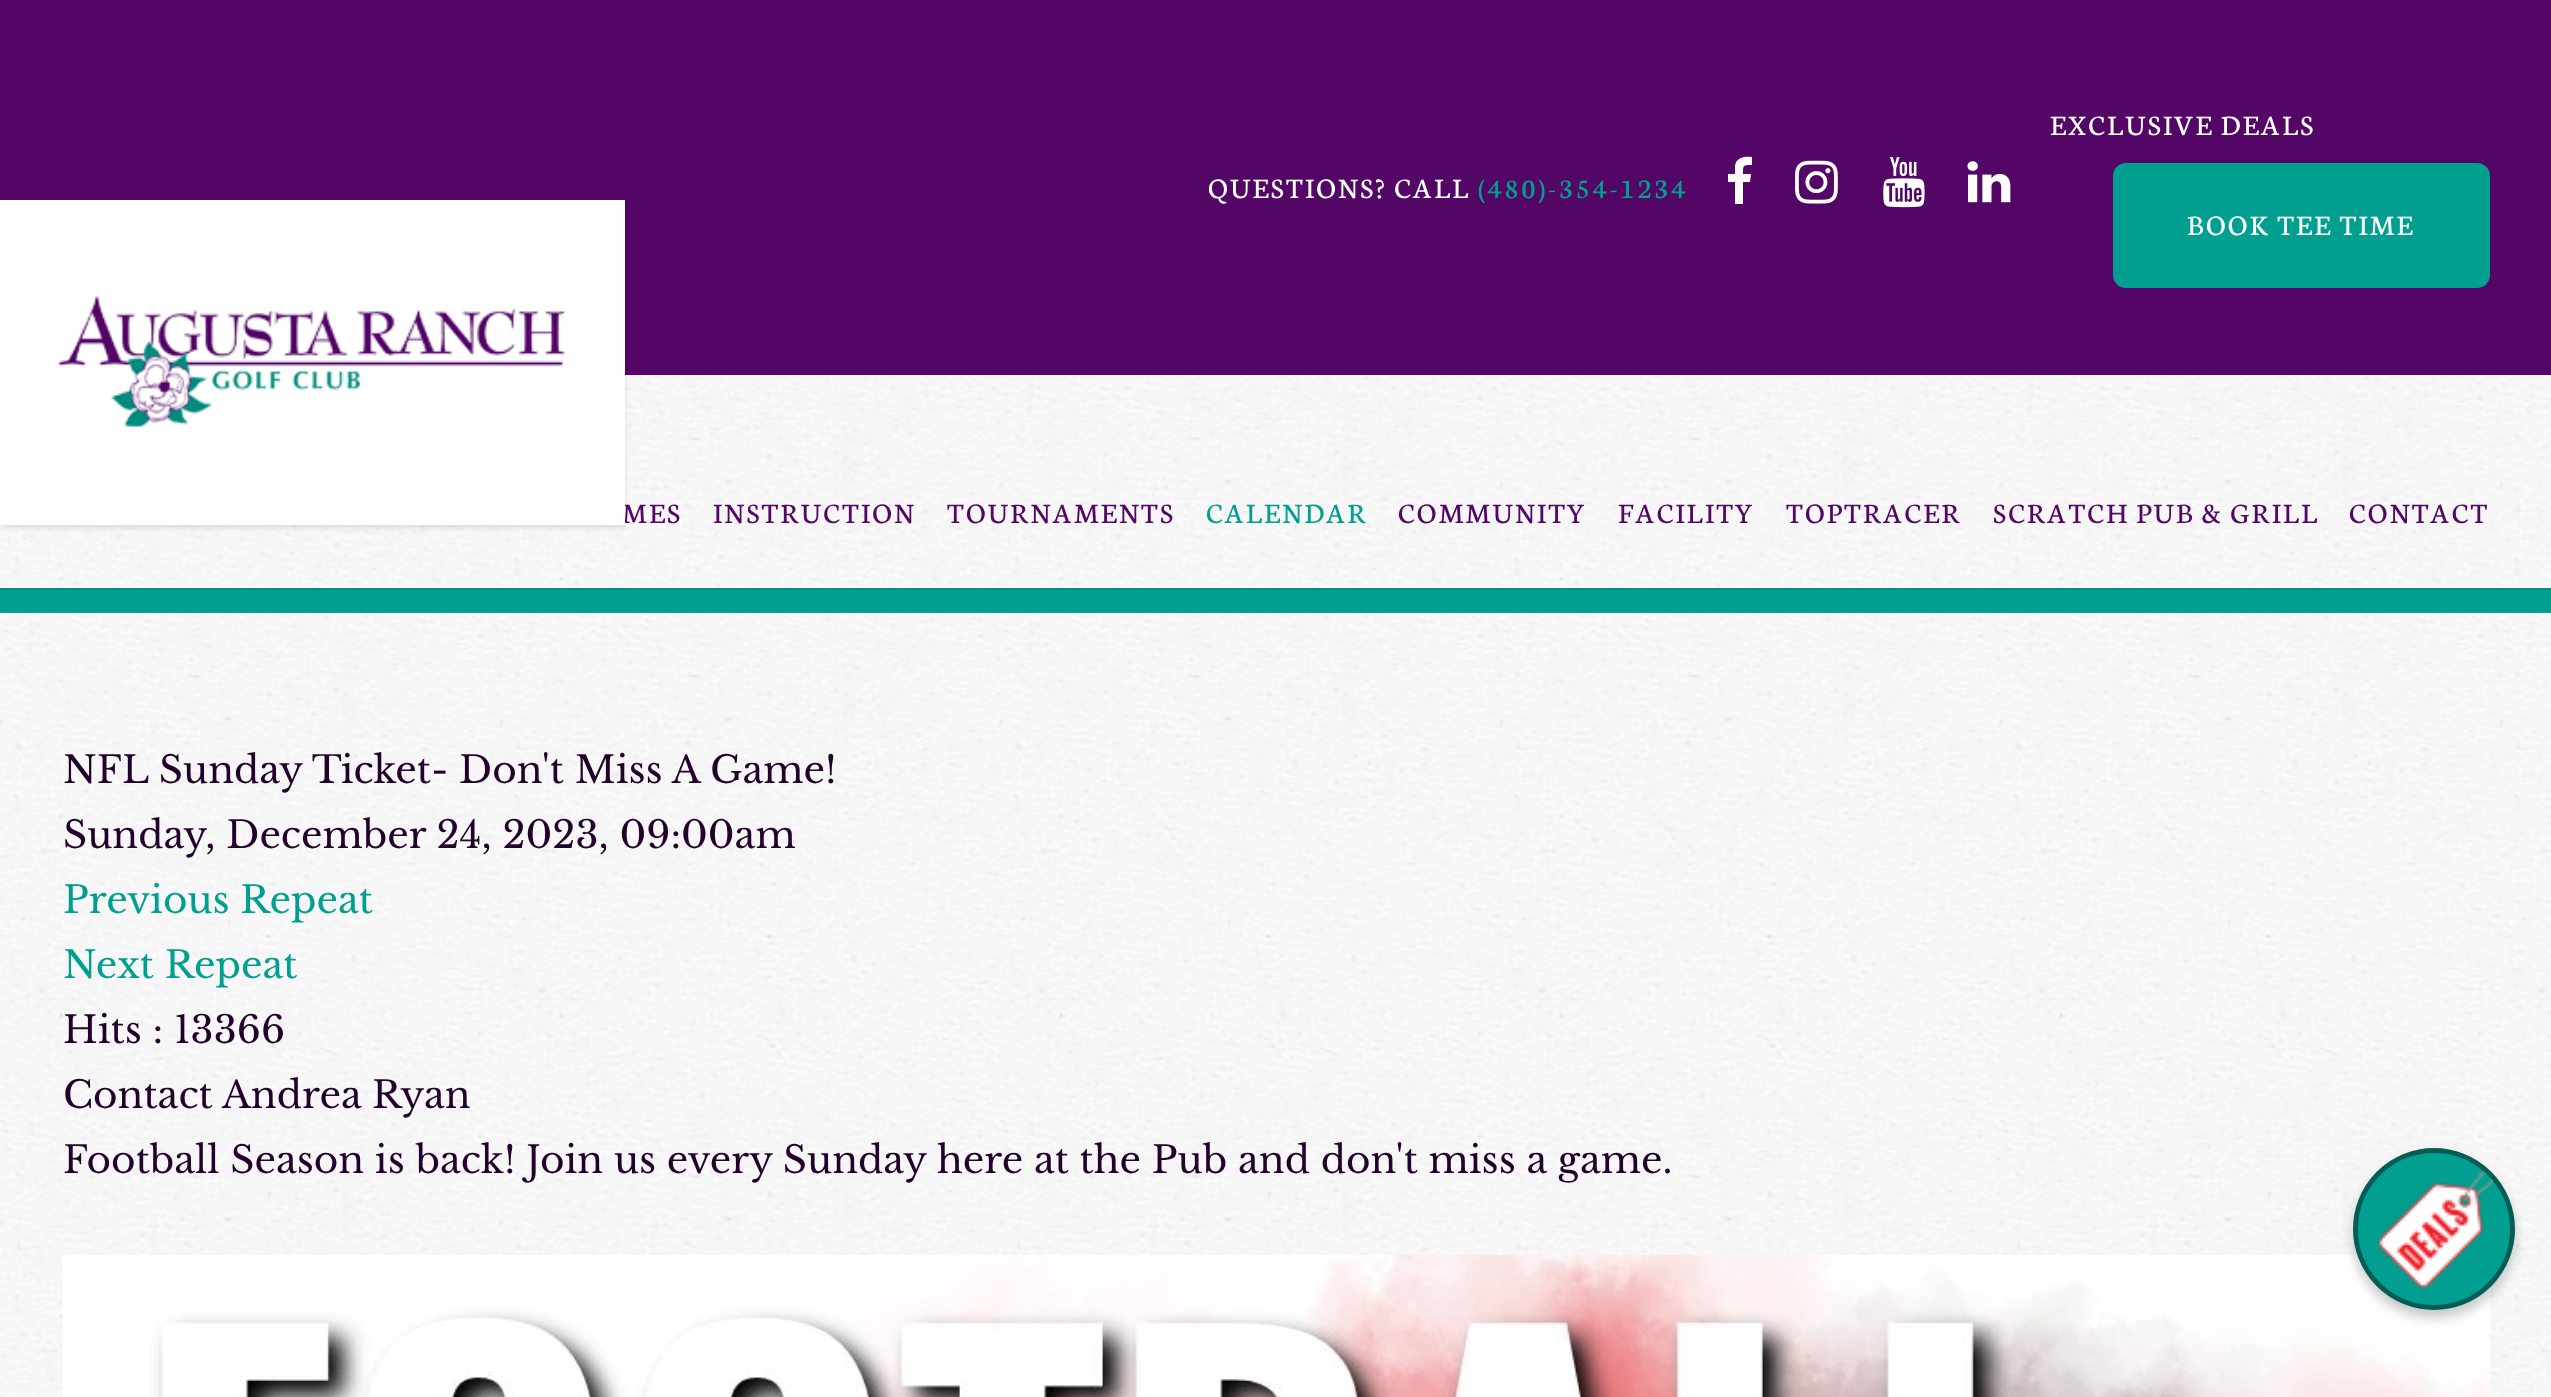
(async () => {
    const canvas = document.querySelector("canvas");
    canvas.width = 2551;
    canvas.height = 1397;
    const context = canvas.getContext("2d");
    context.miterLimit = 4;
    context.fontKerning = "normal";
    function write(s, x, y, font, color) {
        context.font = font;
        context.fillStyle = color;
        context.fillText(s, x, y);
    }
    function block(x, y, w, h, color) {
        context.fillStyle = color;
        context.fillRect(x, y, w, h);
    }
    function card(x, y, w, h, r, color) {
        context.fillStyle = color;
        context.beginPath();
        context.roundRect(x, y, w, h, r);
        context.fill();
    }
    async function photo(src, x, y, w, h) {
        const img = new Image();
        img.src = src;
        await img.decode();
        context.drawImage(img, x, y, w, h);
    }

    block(0, 0, 2551, 1397, "rgb(255, 255, 255)");
    block(0, 590, 2551, 23, "rgb(1, 159, 144)");
    block(0, 0, 2551, 375, "rgb(83, 6, 102)");
    context.letterSpacing = "2.5px";
    write("QUESTIONS? CALL", 1208, 198, "30px Neuton", "rgb(255, 255, 255)");
    write("(480)-354-1234", 1478, 198, "30px Neuton", "rgb(1, 159, 144)");
    context.fillStyle = "rgb(255, 255, 255)";
    context.beginPath();
    context.moveTo(1752, 157);
    context.lineTo(1752, 165);
    context.bezierCurveTo(1743, 165, 1743, 165, 1743, 174);
    context.lineTo(1751, 174);
    context.lineTo(1750, 182);
    context.lineTo(1743, 182);
    context.lineTo(1743, 204);
    context.lineTo(1735, 204);
    context.lineTo(1735, 182);
    context.lineTo(1728, 182);
    context.lineTo(1728, 174);
    context.lineTo(1735, 174);
    context.lineTo(1735, 166);
    context.bezierCurveTo(1736, 157, 1745, 156, 1752, 157);
    context.closePath();
    context.fill();
    await photo("media/1.png", 1795, 160, 43, 44);
    await photo("media/2.png", 1883, 157, 42, 51);
    await photo("media/3.png", 1967, 161, 44, 42);
    write("EXCLUSIVE DEALS", 2050, 135, "30px Neuton", "rgb(255, 255, 255)");
    card(2113, 163, 377, 125, 13, "rgb(1, 159, 144)");
    write("BOOK TEE TIME", 2187, 235, "30px Neuton", "rgb(255, 255, 255)");
    context.fillStyle = "rgb(1, 143, 130)";
    context.beginPath();
    context.moveTo(0, 588);
    context.lineTo(0, 590);
    context.lineTo(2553, 590);
    context.lineTo(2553, 378);
    context.lineTo(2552, 378);
    context.lineTo(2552, 588);
    context.closePath();
    context.fill();
    await photo("media/4.png", 0, 375, 2551, 213);
    context.fillStyle = "rgba(0, 0, 0, 0.1)";
    context.filter = "blur(2.5px)";
    context.beginPath();
    context.rect(0, 203, 625, 325);
    context.fill();
    context.filter = "none";
    write("MES", 622, 523, "30px Neuton", "rgb(83, 6, 102)");
    block(0, 200, 625, 325, "rgb(255, 255, 255)");
    await photo("media/5.png", 58, 296, 507, 131);
    write("INSTRUCTION", 713, 523, "30px Neuton", "rgb(83, 6, 102)");
    write("TOURNAMENTS", 947, 523, "30px Neuton", "rgb(83, 6, 102)");
    write("CALENDAR", 1206, 523, "30px Neuton", "rgb(1, 159, 144)");
    write("COMMUNITY", 1398, 523, "30px Neuton", "rgb(83, 6, 102)");
    write("FACILITY", 1618, 523, "30px Neuton", "rgb(83, 6, 102)");
    write("TOPTRACER", 1786, 523, "30px Neuton", "rgb(83, 6, 102)");
    write("SCRATCH PUB & GRILL", 1993, 523, "30px Neuton", "rgb(83, 6, 102)");
    write("CONTACT", 2349, 523, "30px Neuton", "rgb(83, 6, 102)");
    await photo("media/6.png", 0, 612, 2551, 785);
    context.letterSpacing = "0px";
    write("NFL Sunday Ticket- Don't Miss A Game!", 63, 783, "37.5px Libre Baskerville", "rgb(34, 2, 42)");
    write("Sunday, December 24, 2023, 09:00am", 63, 848, "37.5px Libre Baskerville", "rgb(34, 2, 42)");
    write("Previous Repeat", 63, 913, "37.5px Libre Baskerville", "rgb(1, 159, 144)");
    write("Next Repeat", 63, 978, "37.5px Libre Baskerville", "rgb(1, 159, 144)");
    write("Hits : 13366", 63, 1043, "37.5px Libre Baskerville", "rgb(34, 2, 42)");
    write("Contact Andrea Ryan", 63, 1108, "37.5px Libre Baskerville", "rgb(34, 2, 42)");
    write("Football Season is back! Join us every Sunday here at the Pub and don't miss a game.", 63, 1173, "37.5px Libre Baskerville", "rgb(34, 2, 42)");
    await photo("media/7.png", 62, 1255, 2428, 142);
    context.fillStyle = "rgba(71, 75, 86, 0.3)";
    context.filter = "blur(6px)";
    context.beginPath();
    context.roundRect(2353, 1155, 162, 163, 81);
    context.fill();
    context.filter = "none";
    context.fillStyle = "rgb(1, 159, 144)";
    context.beginPath();
    context.arc(2434, 1229, 78.5, 0, Math.PI * 2);
    context.fill();
    context.strokeStyle = "rgb(3, 93, 84)";
    context.lineWidth = 5;
    context.stroke();
    await photo("media/8.png", 2377, 1170, 117, 119);
})();
